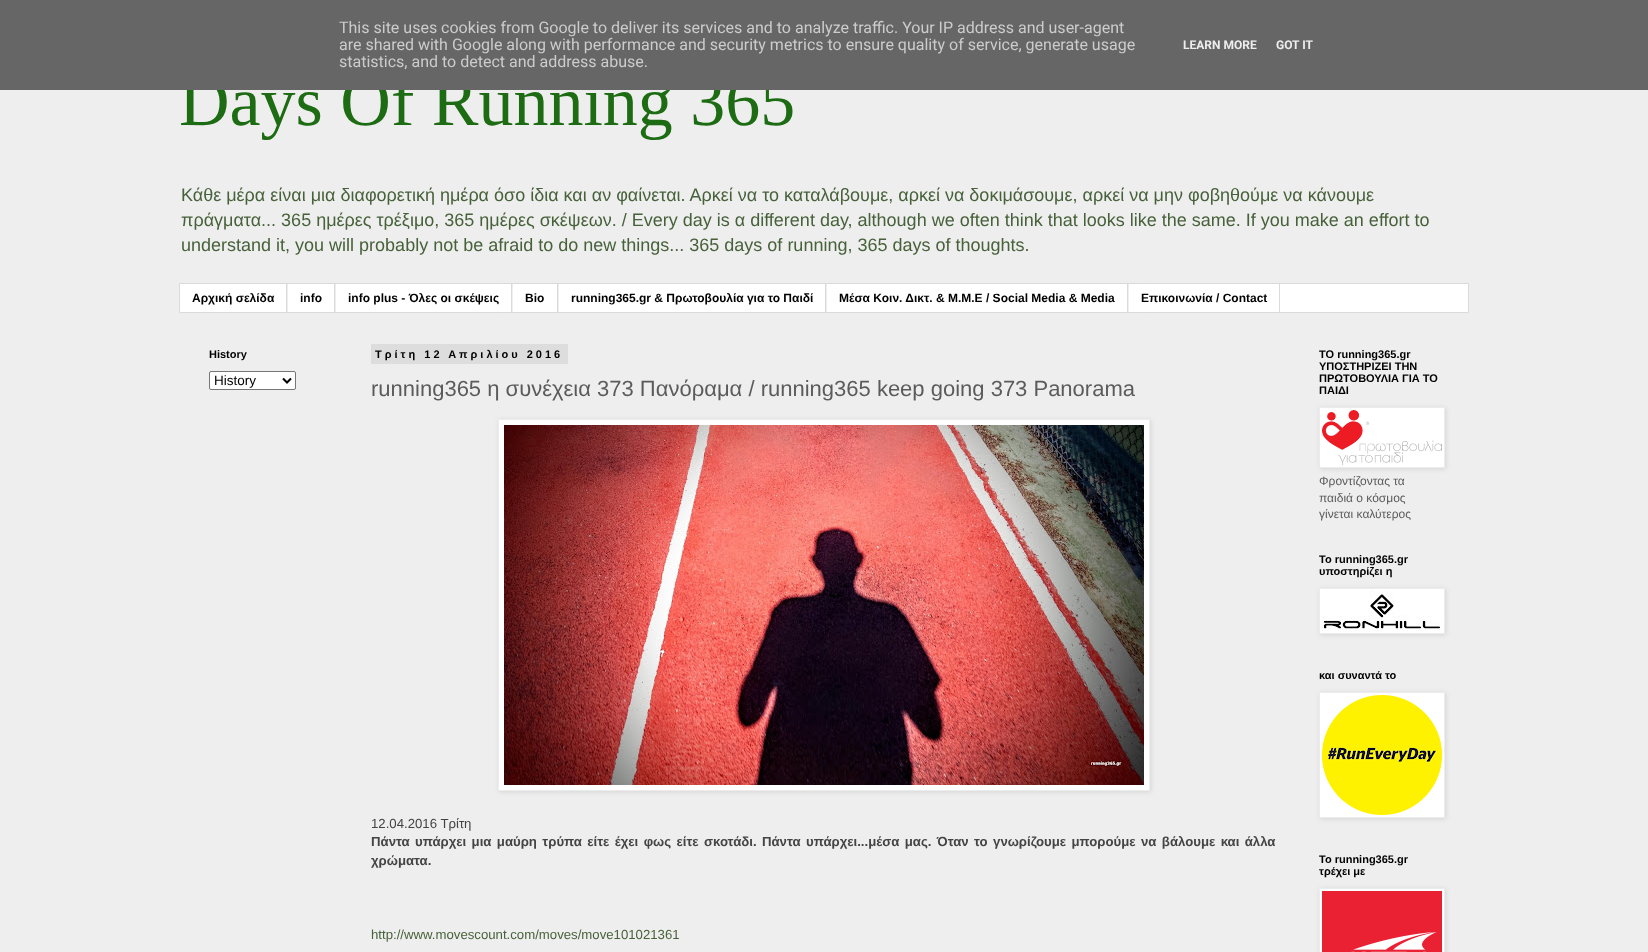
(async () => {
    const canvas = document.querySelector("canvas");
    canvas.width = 1648;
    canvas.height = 952;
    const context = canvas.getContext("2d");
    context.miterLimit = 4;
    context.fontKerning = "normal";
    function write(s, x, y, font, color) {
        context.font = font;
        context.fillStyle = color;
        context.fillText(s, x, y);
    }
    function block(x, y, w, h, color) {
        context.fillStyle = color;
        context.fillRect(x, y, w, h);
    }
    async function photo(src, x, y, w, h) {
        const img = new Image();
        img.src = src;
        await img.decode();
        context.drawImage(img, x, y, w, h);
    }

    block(0, 0, 1648, 952, "rgb(238, 238, 238)");
    write("Days Of Running 365", 179, 125, "70px Liberation Serif", "rgb(29, 108, 19)");
    block(0, 0, 1648, 90, "rgb(102, 102, 102)");
    write("This site uses cookies from Google to deliver its services and to analyze traffic. Your IP address and user-agent", 339, 33, "16px Roboto", "rgb(204, 204, 204)");
    write("are shared with Google along with performance and security metrics to ensure quality of service, generate usage", 339, 50, "16px Roboto", "rgb(204, 204, 204)");
    write("statistics, and to detect and address abuse.", 339, 67, "16px Roboto", "rgb(204, 204, 204)");
    write("LEARN MORE", 1183, 49, "bold 12px Roboto", "rgb(238, 238, 238)");
    write("GOT IT", 1276, 49, "bold 12px Roboto", "rgb(238, 238, 238)");
    write("Κάθε μέρα είναι μια διαφορετική ημέρα όσο ίδια και αν φαίνεται. Αρκεί να το καταλάβουμε, αρκεί να δοκιμάσουμε, αρκεί να μην φοβηθούμε να κάνουμε", 181, 201, "18px Liberation Sans", "rgb(71, 97, 58)");
    write("πράγματα... 365 ημέρες τρέξιμο, 365 ημέρες σκέψεων. / Every day is α different day, although we often think that looks like the same. If you make an effort to", 181, 226, "18px Liberation Sans", "rgb(71, 97, 58)");
    write("understand it, you will probably not be afraid to do new things... 365 days of running, 365 days of thoughts.", 181, 251, "18px Liberation Sans", "rgb(71, 97, 58)");
    context.fillStyle = "rgb(255, 255, 255)";
    context.beginPath();
    context.rect(179.5, 283.5, 1289, 29);
    context.fill();
    context.strokeStyle = "rgb(218, 218, 218)";
    context.stroke();
    block(286, 284, 1, 28, "rgb(218, 218, 218)");
    write("Αρχική σελίδα", 192, 302, "bold 12px Liberation Sans", "rgb(0, 0, 0)");
    block(334, 284, 1, 28, "rgb(218, 218, 218)");
    block(287, 284, 1, 28, "rgb(238, 238, 238)");
    write("info", 300, 302, "bold 12px Liberation Sans", "rgb(0, 0, 0)");
    block(511, 284, 1, 28, "rgb(218, 218, 218)");
    block(335, 284, 1, 28, "rgb(238, 238, 238)");
    write("info plus - Όλες οι σκέψεις", 348, 302, "bold 12px Liberation Sans", "rgb(0, 0, 0)");
    block(557, 284, 1, 28, "rgb(218, 218, 218)");
    block(512, 284, 1, 28, "rgb(238, 238, 238)");
    write("Bio", 525, 302, "bold 12px Liberation Sans", "rgb(0, 0, 0)");
    block(825, 284, 1, 28, "rgb(218, 218, 218)");
    block(558, 284, 1, 28, "rgb(238, 238, 238)");
    write("running365.gr & Πρωτοβουλία για το Παιδί", 571, 302, "bold 12px Liberation Sans", "rgb(0, 0, 0)");
    block(1127, 284, 1, 28, "rgb(218, 218, 218)");
    block(826, 284, 1, 28, "rgb(238, 238, 238)");
    write("Μέσα Κοιν. Δικτ. & Μ.Μ.Ε / Social Media & Media", 839, 302, "bold 12px Liberation Sans", "rgb(0, 0, 0)");
    block(1279, 284, 1, 28, "rgb(218, 218, 218)");
    block(1128, 284, 1, 28, "rgb(238, 238, 238)");
    write("Επικοινωνία / Contact", 1141, 302, "bold 12px Liberation Sans", "rgb(0, 0, 0)");
    write("History", 209, 358, "bold 11px Liberation Sans", "rgb(0, 0, 0)");
    context.fillStyle = "rgb(255, 255, 255)";
    context.beginPath();
    context.roundRect(209.5, 371.5, 86, 18, 1.5);
    context.fill();
    context.strokeStyle = "rgb(118, 118, 118)";
    context.stroke();
    context.beginPath();
    context.moveTo(283, 378.5);
    context.lineTo(287, 382.5);
    context.lineTo(291, 378.5);
    context.strokeStyle = "rgb(0, 0, 0)";
    context.lineWidth = 2;
    context.stroke();
    write("History", 214, 385, "13.5px Liberation Sans", "rgb(0, 0, 0)");
    block(371, 344, 197, 20, "rgb(221, 221, 221)");
    context.letterSpacing = "3px";
    write("Τρίτη 12 Απριλίου 2016", 375, 358, "bold 11px Liberation Sans", "rgb(0, 0, 0)");
    context.letterSpacing = "0px";
    write("running365 η συνέχεια 373 Πανόραμα / running365 keep going 373 Panorama", 371, 396, "22px Liberation Sans", "rgb(91, 91, 91)");
    context.fillStyle = "rgba(0, 0, 0, 0.1)";
    context.filter = "blur(2.5px)";
    context.beginPath();
    context.rect(499, 420, 652, 372);
    context.fill();
    context.filter = "none";
    context.fillStyle = "rgb(255, 255, 255)";
    context.beginPath();
    context.rect(498.5, 419.5, 651, 371);
    context.fill();
    context.strokeStyle = "rgb(236, 236, 236)";
    context.lineWidth = 1;
    context.stroke();
    await photo("media/1.png", 504, 425, 640, 360);
    write("12.04.2016 Τρίτη", 371, 828, "13.2px Liberation Sans", "rgb(68, 68, 68)");
    context.wordSpacing = "1.75px";
    write("Πάντα υπάρχει μια μαύρη τρύπα είτε έχει φως είτε σκοτάδι. Πάντα υπάρχει...μέσα μας. Όταν το γνωρίζουμε μπορούμε να βάλουμε και άλλα", 371, 846, "bold 13.2px Liberation Sans", "rgb(68, 68, 68)");
    context.wordSpacing = "0px";
    write("χρώματα.", 371, 865, "bold 13.2px Liberation Sans", "rgb(68, 68, 68)");
    write("http://www.movescount.com/moves/move101021361", 371, 939, "13.2px Liberation Sans", "rgb(71, 97, 58)");
    write("ΤΟ running365.gr", 1319, 358, "bold 11px Liberation Sans", "rgb(0, 0, 0)");
    write("ΥΠΟΣΤΗΡΙΖΕΙ ΤΗΝ", 1319, 370, "bold 11px Liberation Sans", "rgb(0, 0, 0)");
    write("ΠΡΩΤΟΒΟΥΛΙΑ ΓΙΑ ΤΟ", 1319, 382, "bold 11px Liberation Sans", "rgb(0, 0, 0)");
    write("ΠΑΙΔΙ", 1319, 394, "bold 11px Liberation Sans", "rgb(0, 0, 0)");
    context.fillStyle = "rgba(0, 0, 0, 0.1)";
    context.filter = "blur(2.5px)";
    context.beginPath();
    context.rect(1320, 408, 126, 61);
    context.fill();
    context.filter = "none";
    context.fillStyle = "rgb(255, 255, 255)";
    context.beginPath();
    context.rect(1319.5, 407.5, 125, 60);
    context.fill();
    context.stroke();
    await photo("media/2.png", 1322, 410, 120, 55);
    write("Φροντίζοντας τα", 1319, 485, "12px Liberation Sans", "rgb(91, 91, 91)");
    write("παιδιά ο κόσμος", 1319, 502, "12px Liberation Sans", "rgb(91, 91, 91)");
    write("γίνεται καλύτερος", 1319, 518, "12px Liberation Sans", "rgb(91, 91, 91)");
    write("Το running365.gr", 1319, 563, "bold 11px Liberation Sans", "rgb(0, 0, 0)");
    write("υποστηρίζει η", 1319, 575, "bold 11px Liberation Sans", "rgb(0, 0, 0)");
    context.fillStyle = "rgba(0, 0, 0, 0.1)";
    context.filter = "blur(2.5px)";
    context.beginPath();
    context.rect(1320, 589, 126, 46);
    context.fill();
    context.filter = "none";
    context.fillStyle = "rgb(255, 255, 255)";
    context.beginPath();
    context.rect(1319.5, 588.5, 125, 45);
    context.fill();
    context.stroke();
    await photo("media/3.png", 1322, 591, 120, 40);
    write("και συναντά το", 1319, 679, "bold 11px Liberation Sans", "rgb(0, 0, 0)");
    context.fillStyle = "rgba(0, 0, 0, 0.1)";
    context.filter = "blur(2.5px)";
    context.beginPath();
    context.rect(1320, 693, 126, 126);
    context.fill();
    context.filter = "none";
    context.fillStyle = "rgb(255, 255, 255)";
    context.beginPath();
    context.rect(1319.5, 692.5, 125, 125);
    context.fill();
    context.stroke();
    await photo("media/4.png", 1322, 695, 120, 120);
    write("Το running365.gr", 1319, 863, "bold 11px Liberation Sans", "rgb(0, 0, 0)");
    write("τρέχει με", 1319, 875, "bold 11px Liberation Sans", "rgb(0, 0, 0)");
    context.fillStyle = "rgba(0, 0, 0, 0.1)";
    context.filter = "blur(2.5px)";
    context.beginPath();
    context.rect(1320, 889, 126, 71);
    context.fill();
    context.filter = "none";
    context.fillStyle = "rgb(255, 255, 255)";
    context.beginPath();
    context.rect(1319.5, 888.5, 125, 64);
    context.fill();
    context.stroke();
    await photo("media/5.png", 1322, 891, 120, 61);
})();
